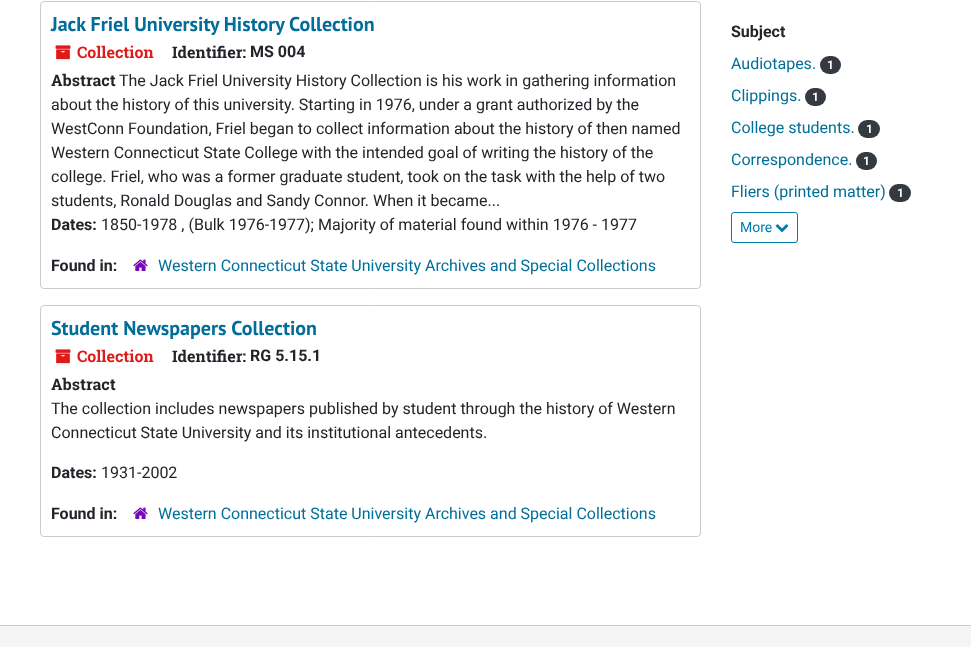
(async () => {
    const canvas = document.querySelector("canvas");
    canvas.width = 971;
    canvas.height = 647;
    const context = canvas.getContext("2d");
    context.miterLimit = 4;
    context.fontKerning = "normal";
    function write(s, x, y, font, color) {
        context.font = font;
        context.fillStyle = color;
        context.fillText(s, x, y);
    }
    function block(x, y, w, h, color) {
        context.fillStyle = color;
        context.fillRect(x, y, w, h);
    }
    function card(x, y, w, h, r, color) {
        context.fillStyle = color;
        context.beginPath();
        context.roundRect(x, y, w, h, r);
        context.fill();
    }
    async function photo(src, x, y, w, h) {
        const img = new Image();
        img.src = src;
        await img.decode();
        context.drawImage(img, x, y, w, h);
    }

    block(0, 0, 971, 647, "rgb(255, 255, 255)");
    context.beginPath();
    context.roundRect(40.5, 1.5, 660, 287, 3.5);
    context.strokeStyle = "rgb(204, 204, 204)";
    context.stroke();
    write("Jack Friel University History Collection", 51, 31, "bold 20px PT Sans", "rgb(0, 110, 153)");
    await photo("media/1.png", 55, 45, 16, 15);
    write("Collection", 77, 58, "bold 16px Roboto Slab", "rgb(224, 25, 25)");
    write("Identifier:", 172, 58, "bold 16px Roboto Slab", "rgb(33, 37, 41)");
    write("MS 004", 250, 57, "bold 16px Roboto", "rgb(33, 37, 41)");
    write("Abstract", 51, 86, "bold 16px Roboto Slab", "rgb(33, 37, 41)");
    write("The Jack Friel University History Collection is his work in gathering information", 119, 86, "16px Roboto", "rgb(33, 37, 41)");
    write("about the history of this university. Starting in 1976, under a grant authorized by the", 51, 110, "16px Roboto", "rgb(33, 37, 41)");
    write("WestConn Foundation, Friel began to collect information about the history of then named", 51, 134, "16px Roboto", "rgb(33, 37, 41)");
    write("Western Connecticut State College with the intended goal of writing the history of the", 51, 158, "16px Roboto", "rgb(33, 37, 41)");
    write("college. Friel, who was a former graduate student, took on the task with the help of two", 51, 182, "16px Roboto", "rgb(33, 37, 41)");
    write("students, Ronald Douglas and Sandy Connor. When it became...", 51, 206, "16px Roboto", "rgb(33, 37, 41)");
    write("Dates:", 51, 230, "bold 16px Roboto", "rgb(33, 37, 41)");
    write("1850-1978 , (Bulk 1976-1977); Majority of material found within 1976 - 1977", 101, 230, "16px Roboto", "rgb(33, 37, 41)");
    write("Found in:", 51, 271, "bold 16px Roboto", "rgb(33, 37, 41)");
    await photo("media/2.png", 133, 259, 15, 12);
    write("Western Connecticut State University Archives and Special Collections", 158, 271, "16px Roboto", "rgb(0, 110, 153)");
    context.beginPath();
    context.roundRect(40.5, 305.5, 660, 231, 3.5);
    context.stroke();
    write("Student Newspapers Collection", 51, 335, "bold 20px PT Sans", "rgb(0, 110, 153)");
    await photo("media/1.png", 55, 349, 16, 15);
    write("Collection", 77, 362, "bold 16px Roboto Slab", "rgb(224, 25, 25)");
    write("Identifier:", 172, 362, "bold 16px Roboto Slab", "rgb(33, 37, 41)");
    write("RG 5.15.1", 250, 361, "bold 16px Roboto", "rgb(33, 37, 41)");
    write("Abstract", 51, 390, "bold 16px Roboto Slab", "rgb(33, 37, 41)");
    write("The collection includes newspapers published by student through the history of Western", 51, 414, "16px Roboto", "rgb(33, 37, 41)");
    write("Connecticut State University and its institutional antecedents.", 51, 438, "16px Roboto", "rgb(33, 37, 41)");
    write("Dates:", 51, 478, "bold 16px Roboto", "rgb(33, 37, 41)");
    write("1931-2002", 101, 478, "16px Roboto", "rgb(33, 37, 41)");
    write("Found in:", 51, 519, "bold 16px Roboto", "rgb(33, 37, 41)");
    await photo("media/2.png", 133, 507, 15, 12);
    write("Western Connecticut State University Archives and Special Collections", 158, 519, "16px Roboto", "rgb(0, 110, 153)");
    write("Subject", 731, 37, "bold 16px Roboto", "rgb(33, 37, 41)");
    write("Audiotapes.", 731, 69, "16px Roboto", "rgb(0, 110, 153)");
    card(820, 56, 21, 18, 9, "rgb(52, 58, 64)");
    write("1", 827, 69, "bold 12px Roboto", "rgb(255, 255, 255)");
    write("Clippings.", 731, 101, "16px Roboto", "rgb(0, 110, 153)");
    card(805, 88, 21, 18, 9, "rgb(52, 58, 64)");
    write("1", 812, 101, "bold 12px Roboto", "rgb(255, 255, 255)");
    write("College students.", 731, 133, "16px Roboto", "rgb(0, 110, 153)");
    card(858, 120, 22, 18, 9, "rgb(52, 58, 64)");
    write("1", 866, 133, "bold 12px Roboto", "rgb(255, 255, 255)");
    write("Correspondence.", 731, 165, "16px Roboto", "rgb(0, 110, 153)");
    card(856, 152, 21, 18, 9, "rgb(52, 58, 64)");
    write("1", 863, 165, "bold 12px Roboto", "rgb(255, 255, 255)");
    write("Fliers (printed matter)", 731, 197, "16px Roboto", "rgb(0, 110, 153)");
    card(889, 184, 22, 18, 9, "rgb(52, 58, 64)");
    write("1", 897, 197, "bold 12px Roboto", "rgb(255, 255, 255)");
    context.beginPath();
    context.roundRect(731.5, 212.5, 66, 30, 2.5);
    context.strokeStyle = "rgb(0, 124, 173)";
    context.stroke();
    write("More", 740, 232, "14px Roboto", "rgb(0, 124, 173)");
    await photo("media/3.png", 775, 224, 14, 9);
    block(0, 626, 971, 21, "rgb(245, 245, 245)");
    block(0, 625, 971, 1, "rgb(204, 204, 204)");
})();
